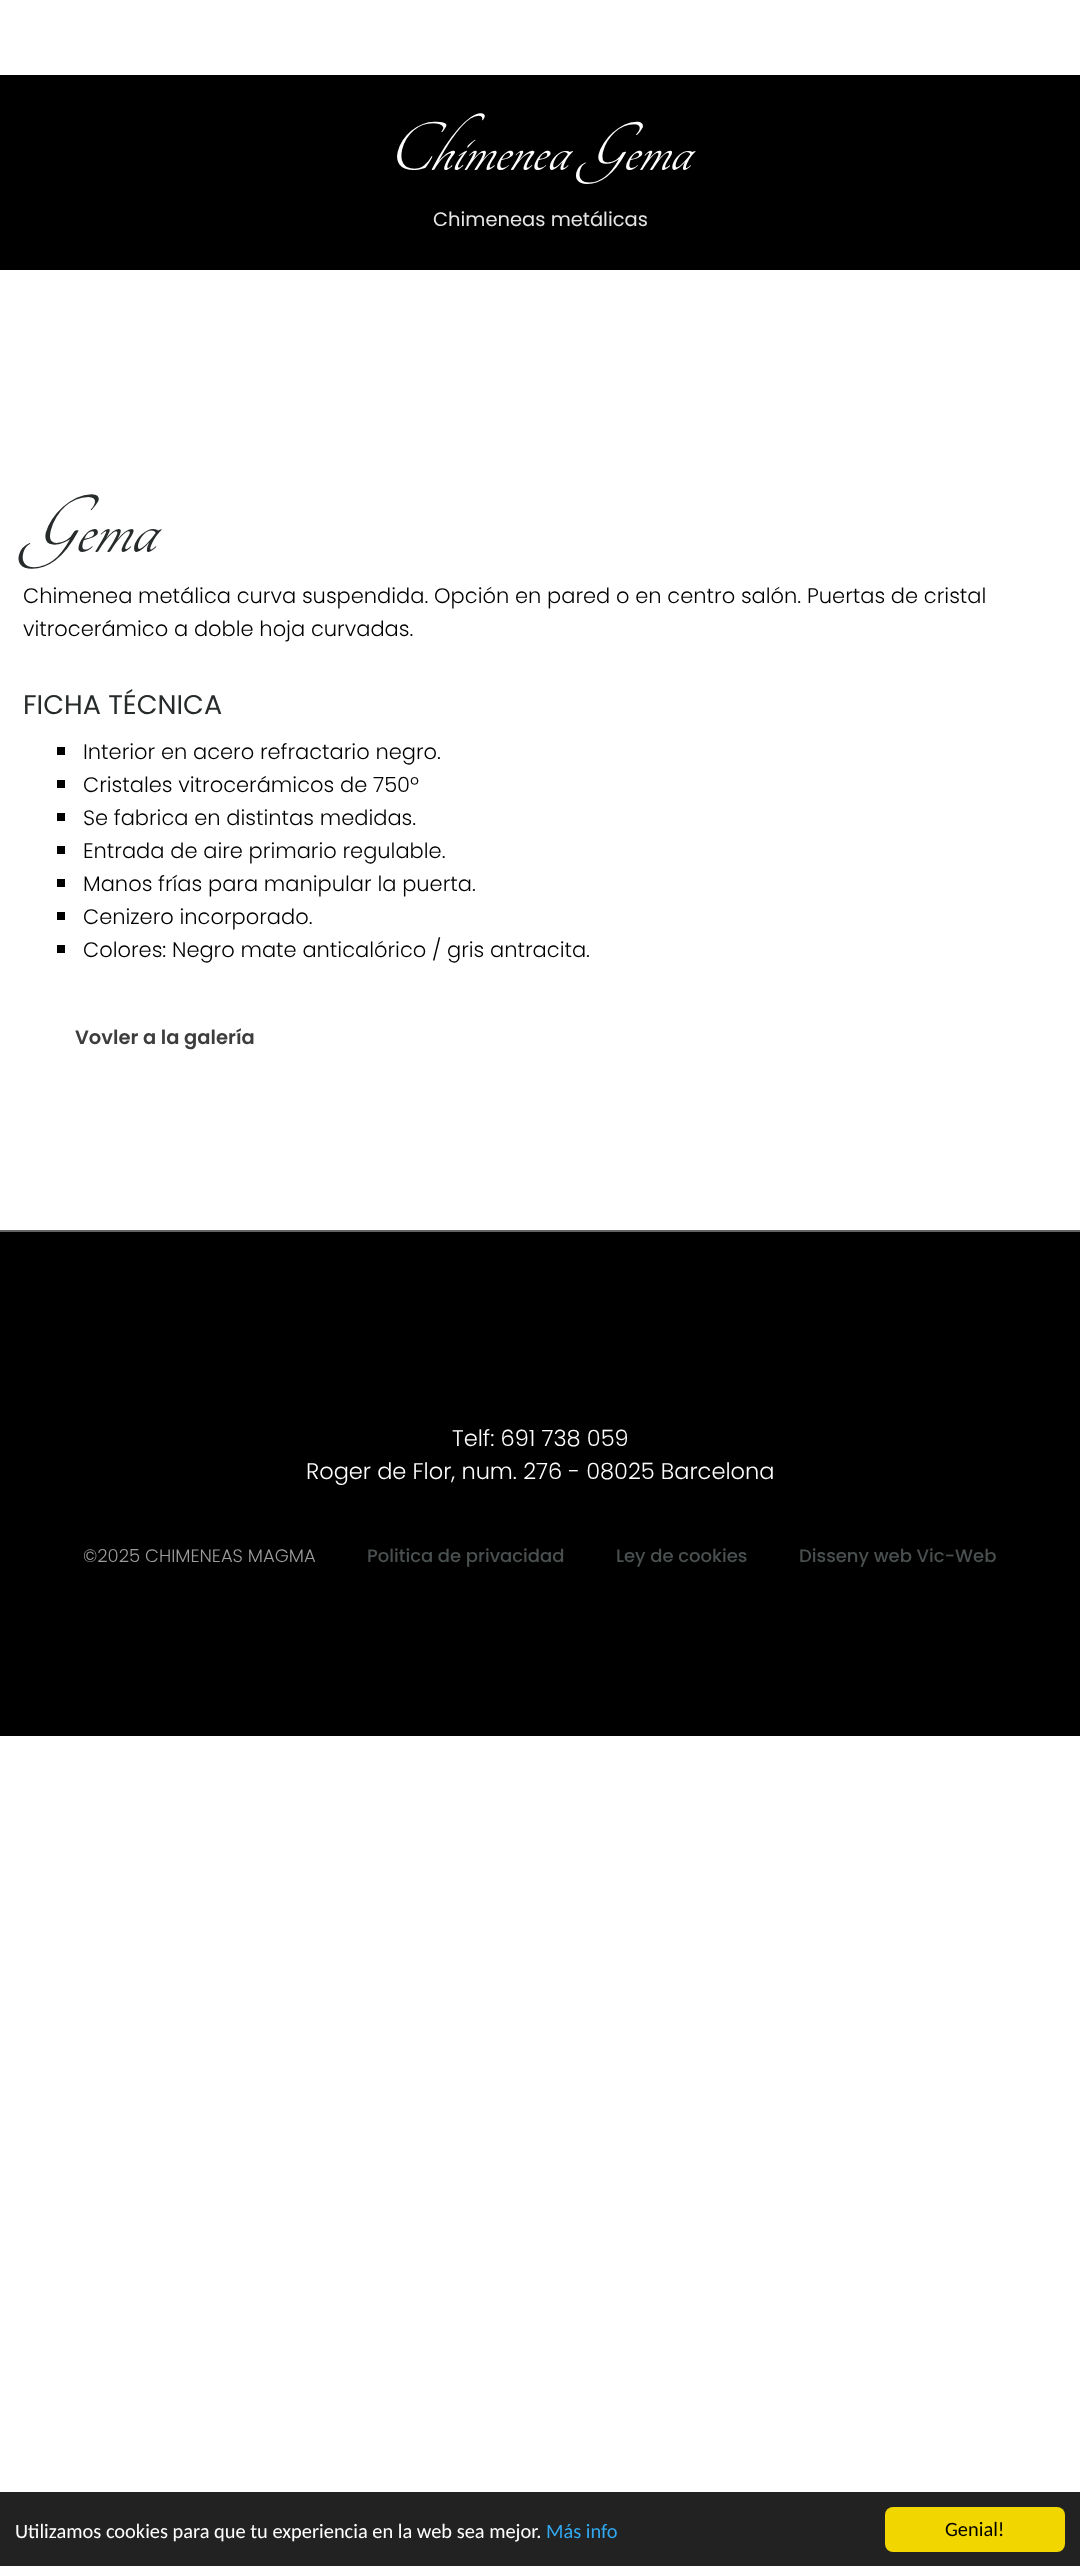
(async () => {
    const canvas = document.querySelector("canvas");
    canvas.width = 1080;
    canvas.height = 2566;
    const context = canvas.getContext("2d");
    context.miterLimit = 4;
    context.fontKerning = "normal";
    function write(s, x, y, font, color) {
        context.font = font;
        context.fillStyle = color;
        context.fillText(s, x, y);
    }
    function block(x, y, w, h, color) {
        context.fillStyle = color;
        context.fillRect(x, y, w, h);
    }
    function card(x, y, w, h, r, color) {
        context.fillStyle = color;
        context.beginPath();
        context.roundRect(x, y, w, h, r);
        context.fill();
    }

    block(0, 0, 1080, 2566, "rgb(255, 255, 255)");
    block(0, 75, 1080, 195, "rgb(0, 0, 0)");
    write("Chimenea Gema", 388, 170, "italic 75px Tangerine", "rgb(255, 255, 255)");
    write("Chimeneas metálicas", 433, 226, "19.5px Poppins", "rgb(230, 230, 230)");
    write("Gema", 23, 552, "italic 90px Tangerine", "rgb(39, 43, 43)");
    write("Chimenea metálica curva suspendida. Opción en pared o en centro salón. Puertas de cristal", 23, 603, "300 21px Poppins", "rgb(0, 0, 0)");
    write("vitrocerámico a doble hoja curvadas.", 23, 636, "300 21px Poppins", "rgb(0, 0, 0)");
    write("FICHA TÉCNICA", 23, 714, "27px Poppins", "rgb(39, 43, 43)");
    block(57, 747, 8, 8, "rgb(0, 0, 0)");
    write("Interior en acero refractario negro.", 83, 759, "300 21px Poppins", "rgb(0, 0, 0)");
    block(57, 780, 8, 8, "rgb(0, 0, 0)");
    write("Cristales vitrocerámicos de 750º", 83, 792, "300 21px Poppins", "rgb(0, 0, 0)");
    block(57, 813, 8, 8, "rgb(0, 0, 0)");
    write("Se fabrica en distintas medidas.", 83, 825, "300 21px Poppins", "rgb(0, 0, 0)");
    block(57, 846, 8, 8, "rgb(0, 0, 0)");
    write("Entrada de aire primario regulable.", 83, 858, "300 21px Poppins", "rgb(0, 0, 0)");
    block(57, 879, 8, 8, "rgb(0, 0, 0)");
    write("Manos frías para manipular la puerta.", 83, 891, "300 21px Poppins", "rgb(0, 0, 0)");
    block(57, 912, 8, 8, "rgb(0, 0, 0)");
    write("Cenizero incorporado.", 83, 924, "300 21px Poppins", "rgb(0, 0, 0)");
    block(57, 945, 8, 8, "rgb(0, 0, 0)");
    write("Colores: Negro mate anticalórico / gris antracita.", 83, 957, "300 21px Poppins", "rgb(0, 0, 0)");
    write("Vovler a la galería", 75, 1044, "600 19.5px Poppins", "rgb(61, 61, 61)");
    block(0, 1232, 1080, 504, "rgb(0, 0, 0)");
    block(0, 1230, 1080, 2, "rgb(99, 99, 99)");
    write("Telf: 691 738 059", 452, 1446, "300 22.5px Poppins", "rgb(255, 255, 255)");
    write("Roger de Flor, num. 276 - 08025 Barcelona", 306, 1479, "300 22.5px Poppins", "rgb(255, 255, 255)");
    write("©2025 CHIMENEAS MAGMA", 83, 1562, "300 18px Poppins", "rgb(156, 156, 156)");
    write("Politica de privacidad", 367, 1562, "500 18px Poppins", "rgb(74, 80, 80)");
    write("Ley de cookies", 616, 1562, "500 18px Poppins", "rgb(74, 80, 80)");
    write("Disseny web Vic-Web", 799, 1562, "500 18px Poppins", "rgb(74, 80, 80)");
    block(0, 2492, 1080, 74, "rgb(34, 34, 34)");
    write("Utilizamos cookies para que tu experiencia en la web sea mejor.", 15, 2538, "20.4px Carlito", "rgb(255, 255, 255)");
    write("Más info", 546, 2538, "20.4px Carlito", "rgb(49, 168, 240)");
    card(885, 2507, 180, 45, 8, "rgb(241, 214, 0)");
    write("Genial!", 945, 2536, "20.4px Carlito", "rgb(0, 0, 0)");
})();
